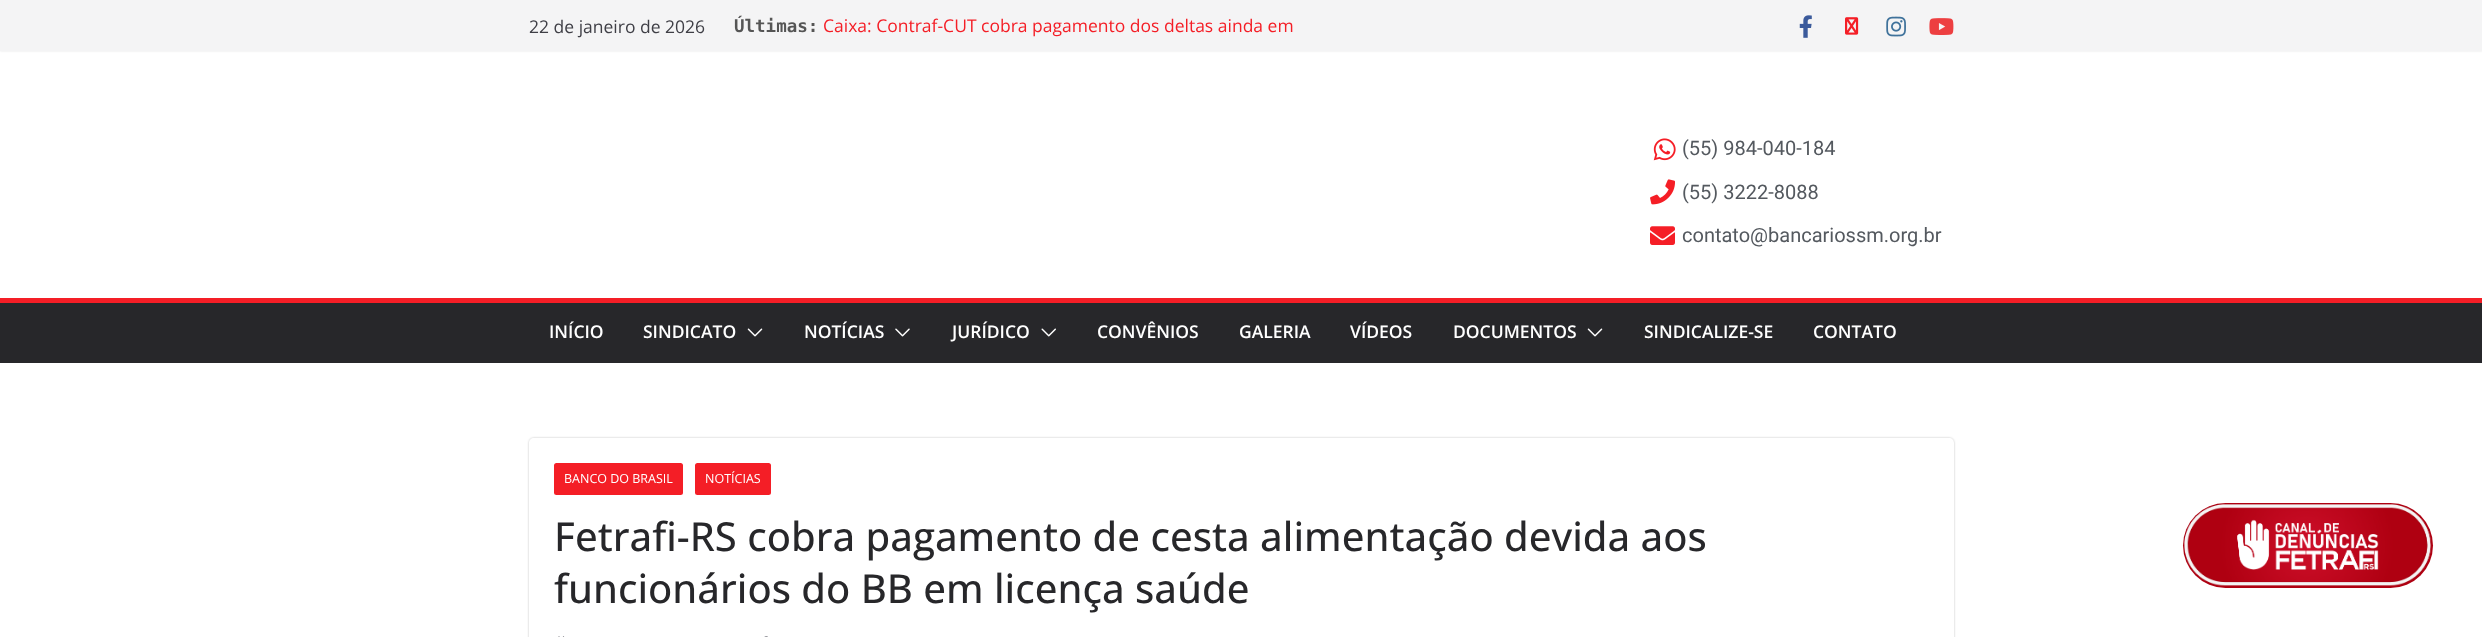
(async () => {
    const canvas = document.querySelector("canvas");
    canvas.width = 2482;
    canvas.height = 637;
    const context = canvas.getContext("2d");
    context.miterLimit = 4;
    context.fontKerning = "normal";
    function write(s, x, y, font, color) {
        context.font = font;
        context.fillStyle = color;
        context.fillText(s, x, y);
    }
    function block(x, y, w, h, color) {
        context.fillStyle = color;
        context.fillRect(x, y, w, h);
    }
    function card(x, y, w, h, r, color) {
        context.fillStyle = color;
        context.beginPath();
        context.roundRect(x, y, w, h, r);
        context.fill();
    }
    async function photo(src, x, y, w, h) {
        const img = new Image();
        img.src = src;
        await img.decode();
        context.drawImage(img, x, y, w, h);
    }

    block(0, 0, 2482, 637, "rgb(255, 255, 255)");
    context.fillStyle = "rgba(0, 0, 0, 0.1)";
    context.filter = "blur(1px)";
    context.beginPath();
    context.rect(0, 0, 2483, 51);
    context.fill();
    context.filter = "none";
    block(0, 0, 2482, 51, "rgb(244, 244, 245)");
    write("22 de janeiro de 2026", 529, 33, "17.5px Open Sans", "rgb(63, 63, 70)");
    write("Últimas:", 734, 32, "bold 17.5px DejaVu Sans Mono", "rgb(85, 85, 85)");
    write("Caixa: Contraf-CUT cobra pagamento dos deltas ainda em", 823, 32, "17.5px Open Sans", "rgb(244, 30, 38)");
    await photo("media/1.png", 1799, 15, 13, 23);
    await photo("media/2.png", 1845, 17, 14, 18);
    await photo("media/3.png", 1886, 16, 20, 21);
    await photo("media/4.png", 1929, 18, 25, 17);
    await photo("media/5.png", 1653, 138, 23, 23);
    write("(55) 984-040-184", 1682, 155, "20px Roboto", "rgb(84, 89, 95)");
    await photo("media/6.png", 1650, 179, 25, 26);
    write("(55) 3222-8088", 1682, 199, "20px Roboto", "rgb(84, 89, 95)");
    await photo("media/7.png", 1650, 226, 25, 19);
    write("contato@bancariossm.org.br", 1682, 242, "20px Roboto", "rgb(84, 89, 95)");
    block(0, 303, 2482, 60, "rgb(39, 39, 42)");
    block(0, 298, 2482, 5, "rgb(244, 30, 38)");
    write("INÍCIO", 549, 338, "600 17.5px Open Sans", "rgb(255, 255, 255)");
    write("SINDICATO", 643, 338, "600 17.5px Open Sans", "rgb(255, 255, 255)");
    await photo("media/8.png", 747, 328, 16, 9);
    write("NOTÍCIAS", 804, 338, "600 17.5px Open Sans", "rgb(255, 255, 255)");
    await photo("media/9.png", 895, 328, 15, 9);
    write("JURÍDICO", 952, 338, "600 17.5px Open Sans", "rgb(255, 255, 255)");
    await photo("media/10.png", 1041, 328, 15, 9);
    write("CONVÊNIOS", 1097, 338, "600 17.5px Open Sans", "rgb(255, 255, 255)");
    write("GALERIA", 1239, 338, "600 17.5px Open Sans", "rgb(255, 255, 255)");
    write("VÍDEOS", 1350, 338, "600 17.5px Open Sans", "rgb(255, 255, 255)");
    write("DOCUMENTOS", 1453, 338, "600 17.5px Open Sans", "rgb(255, 255, 255)");
    await photo("media/8.png", 1587, 328, 16, 9);
    write("SINDICALIZE-SE", 1644, 338, "600 17.5px Open Sans", "rgb(255, 255, 255)");
    write("CONTATO", 1813, 338, "600 17.5px Open Sans", "rgb(255, 255, 255)");
    context.save();
    context.beginPath();
    context.moveTo(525, 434);
    context.lineTo(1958, 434);
    context.lineTo(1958, 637);
    context.lineTo(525, 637);
    context.closePath();
    context.moveTo(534, 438);
    context.lineTo(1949, 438);
    context.bezierCurveTo(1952, 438, 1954, 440, 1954, 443);
    context.lineTo(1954, 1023);
    context.bezierCurveTo(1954, 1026, 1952, 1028, 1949, 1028);
    context.lineTo(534, 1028);
    context.bezierCurveTo(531, 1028, 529, 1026, 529, 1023);
    context.lineTo(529, 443);
    context.bezierCurveTo(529, 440, 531, 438, 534, 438);
    context.closePath();
    context.clip("evenodd");
    context.fillStyle = "rgba(0, 0, 0, 0.24)";
    context.filter = "blur(1px)";
    context.beginPath();
    context.roundRect(529, 438, 1425, 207, 5);
    context.fill();
    context.filter = "none";
    context.restore();
    card(554, 463, 129, 32, 2.5, "rgb(244, 30, 38)");
    write("BANCO DO BRASIL", 564, 483, "12.5px Open Sans", "rgb(255, 255, 255)");
    card(695, 463, 76, 32, 2.5, "rgb(244, 30, 38)");
    write("NOTÍCIAS", 705, 483, "12.5px Open Sans", "rgb(255, 255, 255)");
    write("Fetrafi-RS cobra pagamento de cesta alimentação devida aos", 554, 551, "500 40px Open Sans", "rgb(39, 39, 42)");
    write("funcionários do BB em licença saúde", 554, 603, "500 40px Open Sans", "rgb(39, 39, 42)");
    await photo("media/11.png", 558, 636, 7, 1);
    await photo("media/12.png", 764, 636, 4, 1);
    card(2183, 503, 250, 85, 42.5, "rgb(175, 0, 17)");
    await photo("media/13.png", 2184, 504, 248, 82);
})();
